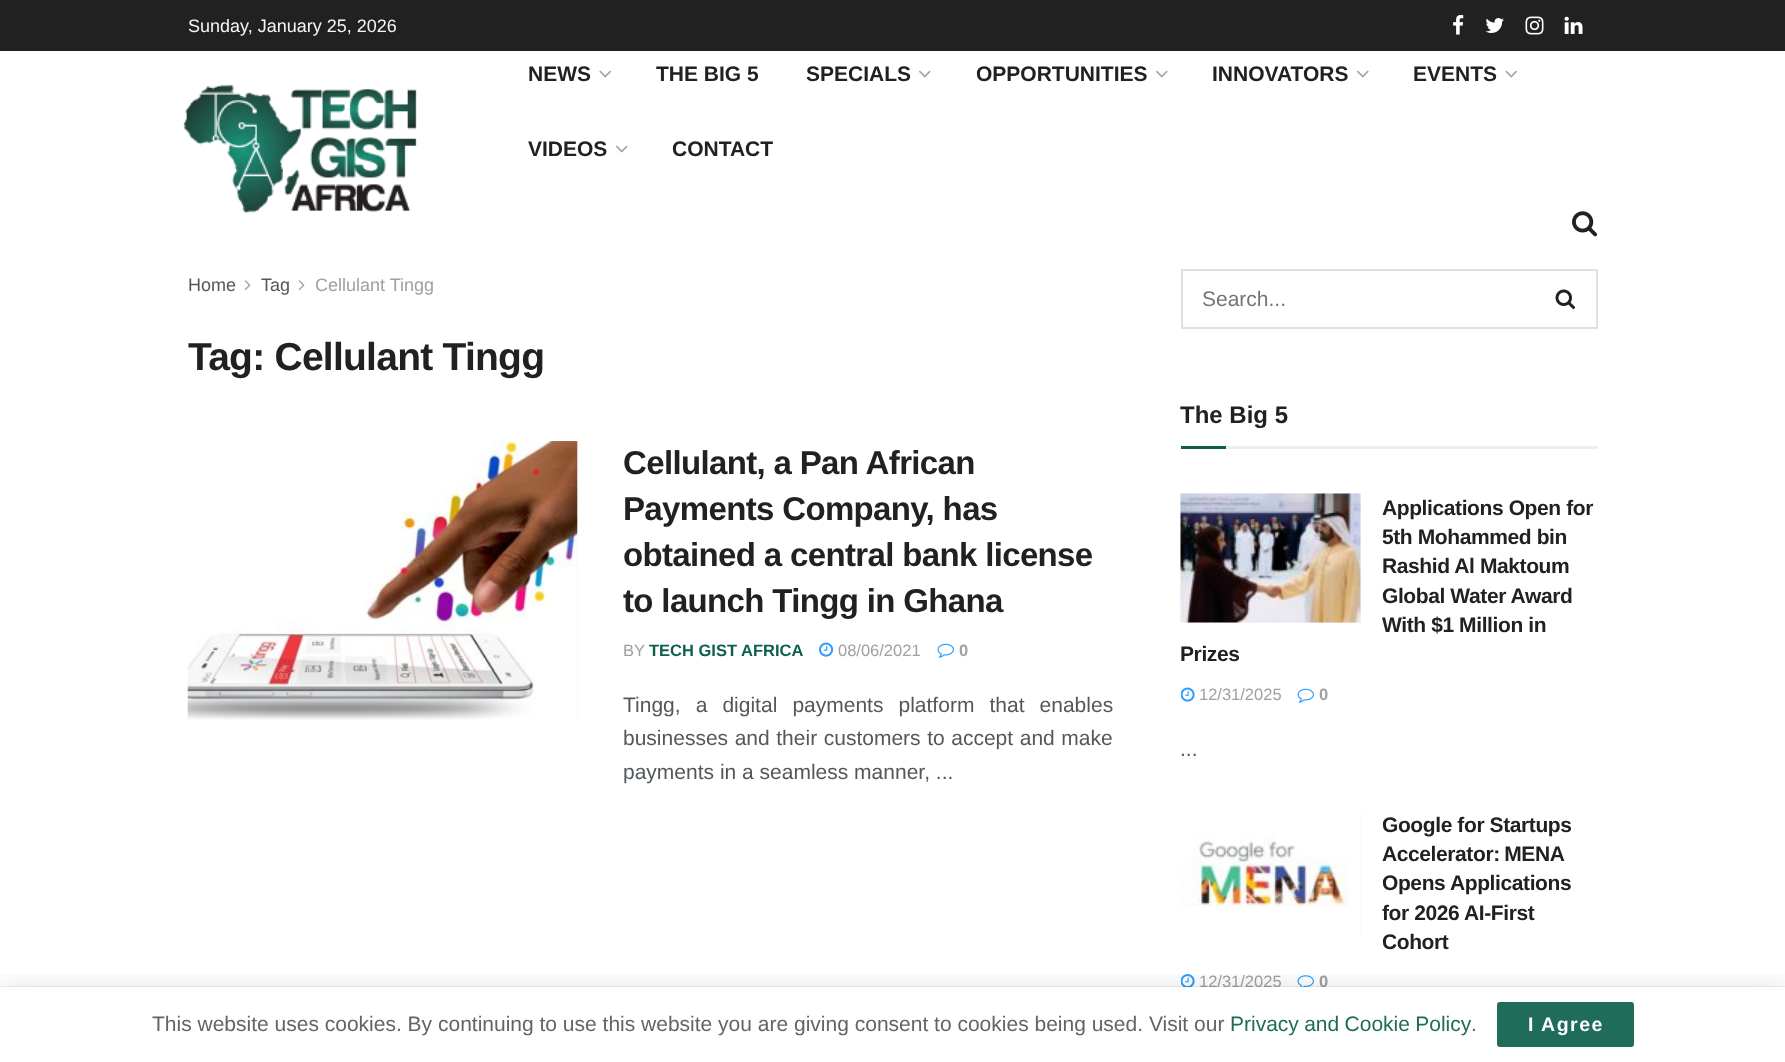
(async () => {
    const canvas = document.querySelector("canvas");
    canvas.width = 1785;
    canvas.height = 1062;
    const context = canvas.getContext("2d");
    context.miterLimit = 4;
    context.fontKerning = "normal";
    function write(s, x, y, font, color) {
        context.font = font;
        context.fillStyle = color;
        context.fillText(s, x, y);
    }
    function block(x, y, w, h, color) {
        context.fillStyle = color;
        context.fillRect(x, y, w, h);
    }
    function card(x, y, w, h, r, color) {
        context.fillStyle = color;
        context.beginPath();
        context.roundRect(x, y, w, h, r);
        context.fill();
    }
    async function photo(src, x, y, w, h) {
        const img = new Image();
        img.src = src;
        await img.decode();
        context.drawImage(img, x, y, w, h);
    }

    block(0, 0, 1785, 1062, "rgb(255, 255, 255)");
    block(0, 0, 1785, 51, "rgb(33, 33, 33)");
    write("Sunday, January 25, 2026", 188, 32, "18px Liberation Sans", "rgb(245, 245, 245)");
    await photo("media/1.png", 1453, 15, 11, 20);
    await photo("media/2.png", 1485, 18, 19, 15);
    await photo("media/3.png", 1525, 16, 19, 19);
    await photo("media/4.png", 1564, 16, 19, 18);
    await photo("media/5.png", 183, 84, 234, 130);
    write("NEWS", 528, 81, "bold 21px Liberation Sans", "rgb(33, 33, 33)");
    await photo("media/6.png", 599, 70, 12, 8);
    write("THE BIG 5", 656, 81, "bold 21px Liberation Sans", "rgb(33, 33, 33)");
    write("SPECIALS", 806, 81, "bold 21px Liberation Sans", "rgb(33, 33, 33)");
    await photo("media/7.png", 919, 70, 12, 8);
    write("OPPORTUNITIES", 976, 81, "bold 21px Liberation Sans", "rgb(33, 33, 33)");
    await photo("media/7.png", 1156, 70, 12, 8);
    write("INNOVATORS", 1212, 81, "bold 21px Liberation Sans", "rgb(33, 33, 33)");
    await photo("media/7.png", 1357, 70, 12, 8);
    write("EVENTS", 1413, 81, "bold 21px Liberation Sans", "rgb(33, 33, 33)");
    await photo("media/6.png", 1505, 70, 12, 8);
    write("VIDEOS", 528, 156, "bold 21px Liberation Sans", "rgb(33, 33, 33)");
    await photo("media/7.png", 616, 145, 12, 8);
    write("CONTACT", 672, 156, "bold 21px Liberation Sans", "rgb(33, 33, 33)");
    await photo("media/8.png", 1572, 211, 26, 26);
    write("Home", 188, 291, "18px Liberation Sans", "rgb(83, 88, 92)");
    await photo("media/9.png", 244, 280, 7, 11);
    write("Tag", 261, 291, "18px Liberation Sans", "rgb(83, 88, 92)");
    await photo("media/9.png", 298, 280, 7, 11);
    write("Cellulant Tingg", 315, 291, "18px Liberation Sans", "rgb(160, 160, 160)");
    context.letterSpacing = "-0.75px";
    write("Tag: Cellulant Tingg", 188, 370, "bold 39px Liberation Sans", "rgb(33, 33, 33)");
    block(577, 441, 1, 279, "rgb(247, 247, 247)");
    await photo("media/10.png", 187, 441, 391, 279);
    context.letterSpacing = "-0.65px";
    write("Cellulant, a Pan African", 623, 474, "bold 33px Liberation Sans", "rgb(33, 33, 33)");
    write("Payments Company, has", 623, 520, "bold 33px Liberation Sans", "rgb(33, 33, 33)");
    write("obtained a central bank license", 623, 566, "bold 33px Liberation Sans", "rgb(33, 33, 33)");
    write("to launch Tingg in Ghana", 623, 612, "bold 33px Liberation Sans", "rgb(33, 33, 33)");
    context.letterSpacing = "0px";
    write("BY", 623, 656, "16.5px Liberation Sans", "rgb(160, 160, 160)");
    write("TECH GIST AFRICA", 649, 656, "bold 16.5px Liberation Sans", "rgb(12, 95, 77)");
    await photo("media/11.png", 819, 642, 15, 15);
    write("08/06/2021", 838, 656, "16.5px Liberation Sans", "rgb(160, 160, 160)");
    await photo("media/12.png", 937, 643, 17, 15);
    write("0", 959, 656, "bold 16.5px Liberation Sans", "rgb(160, 160, 160)");
    context.wordSpacing = "9.25px";
    write("Tingg, a digital payments platform that enables", 623, 712, "21px Liberation Sans", "rgb(83, 88, 92)");
    context.wordSpacing = "0.75px";
    write("businesses and their customers to accept and make", 623, 745, "21px Liberation Sans", "rgb(83, 88, 92)");
    context.wordSpacing = "0px";
    write("payments in a seamless manner, ...", 623, 779, "21px Liberation Sans", "rgb(83, 88, 92)");
    context.strokeStyle = "rgb(224, 224, 224)";
    context.lineWidth = 2;
    context.strokeRect(1182, 270, 415, 58);
    write("Search...", 1202, 306, "21px Liberation Sans", "rgb(117, 117, 117)");
    await photo("media/13.png", 1555, 289, 20, 20);
    block(1226, 446, 372, 3, "rgb(238, 238, 238)");
    write("The Big 5", 1180, 423, "bold 24px Liberation Sans", "rgb(33, 33, 33)");
    block(1181, 446, 45, 3, "rgb(12, 95, 77)");
    block(1181, 494, 180, 129, "rgb(247, 247, 247)");
    block(1180, 493, 180, 129, "rgb(247, 247, 247)");
    await photo("media/14.png", 1180, 493, 181, 130);
    context.letterSpacing = "-0.4px";
    write("Applications Open for", 1382, 515, "bold 21px Liberation Sans", "rgb(33, 33, 33)");
    write("5th Mohammed bin", 1382, 544, "bold 21px Liberation Sans", "rgb(33, 33, 33)");
    write("Rashid Al Maktoum", 1382, 573, "bold 21px Liberation Sans", "rgb(33, 33, 33)");
    write("Global Water Award", 1382, 603, "bold 21px Liberation Sans", "rgb(33, 33, 33)");
    write("With $1 Million in", 1382, 632, "bold 21px Liberation Sans", "rgb(33, 33, 33)");
    write("Prizes", 1180, 661, "bold 21px Liberation Sans", "rgb(33, 33, 33)");
    await photo("media/15.png", 1181, 687, 14, 15);
    context.letterSpacing = "0px";
    write("12/31/2025", 1199, 700, "16.5px Liberation Sans", "rgb(160, 160, 160)");
    await photo("media/12.png", 1297, 688, 17, 15);
    write("0", 1319, 700, "bold 16.5px Liberation Sans", "rgb(160, 160, 160)");
    write("...", 1180, 756, "21px Liberation Sans", "rgb(83, 88, 92)");
    block(1360, 810, 1, 129, "rgb(247, 247, 247)");
    block(1180, 810, 1, 127, "rgb(251, 251, 251)");
    await photo("media/16.png", 1180, 810, 181, 129);
    context.letterSpacing = "-0.4px";
    write("Google for Startups", 1382, 832, "bold 21px Liberation Sans", "rgb(33, 33, 33)");
    context.wordSpacing = "-1px";
    write("Accelerator: MENA", 1382, 861, "bold 21px Liberation Sans", "rgb(33, 33, 33)");
    context.wordSpacing = "0px";
    write("Opens Applications", 1382, 890, "bold 21px Liberation Sans", "rgb(33, 33, 33)");
    write("for 2026 AI-First", 1382, 920, "bold 21px Liberation Sans", "rgb(33, 33, 33)");
    write("Cohort", 1382, 949, "bold 21px Liberation Sans", "rgb(33, 33, 33)");
    await photo("media/17.png", 1181, 974, 14, 15);
    context.letterSpacing = "0px";
    write("12/31/2025", 1199, 987, "16.5px Liberation Sans", "rgb(160, 160, 160)");
    await photo("media/18.png", 1297, 975, 17, 15);
    write("0", 1319, 987, "bold 16.5px Liberation Sans", "rgb(160, 160, 160)");
    context.save();
    context.beginPath();
    context.rect(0, 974, 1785, 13);
    context.clip();
    context.fillStyle = "rgba(0, 0, 0, 0.14)";
    context.filter = "blur(15px)";
    context.beginPath();
    context.rect(0, 990, 1785, 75);
    context.fill();
    context.filter = "none";
    context.restore();
    context.save();
    context.beginPath();
    context.rect(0, 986, 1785, 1);
    context.clip();
    context.fillStyle = "rgba(0, 0, 0, 0.18)";
    context.filter = "blur(1px)";
    context.beginPath();
    context.rect(0, 987, 1785, 75);
    context.fill();
    context.filter = "none";
    context.restore();
    block(1183, 987, 142, 3, "rgba(255, 255, 255, 0.92)");
    write("This website uses cookies. By continuing to use this website you are giving consent to cookies being used. Visit our", 152, 1031, "21px Liberation Sans", "rgb(97, 101, 105)");
    context.wordSpacing = "-0.5px";
    write("Privacy and Cookie Policy", 1230, 1031, "21px Liberation Sans", "rgb(31, 108, 91)");
    context.wordSpacing = "0px";
    write(".", 1471, 1031, "21px Liberation Sans", "rgb(97, 101, 105)");
    card(1497, 1002, 137, 45, 3, "rgb(31, 108, 91)");
    context.letterSpacing = "1.5px";
    write("I Agree", 1528, 1031, "bold 19.5px Liberation Sans", "rgb(255, 255, 255)");
})();
